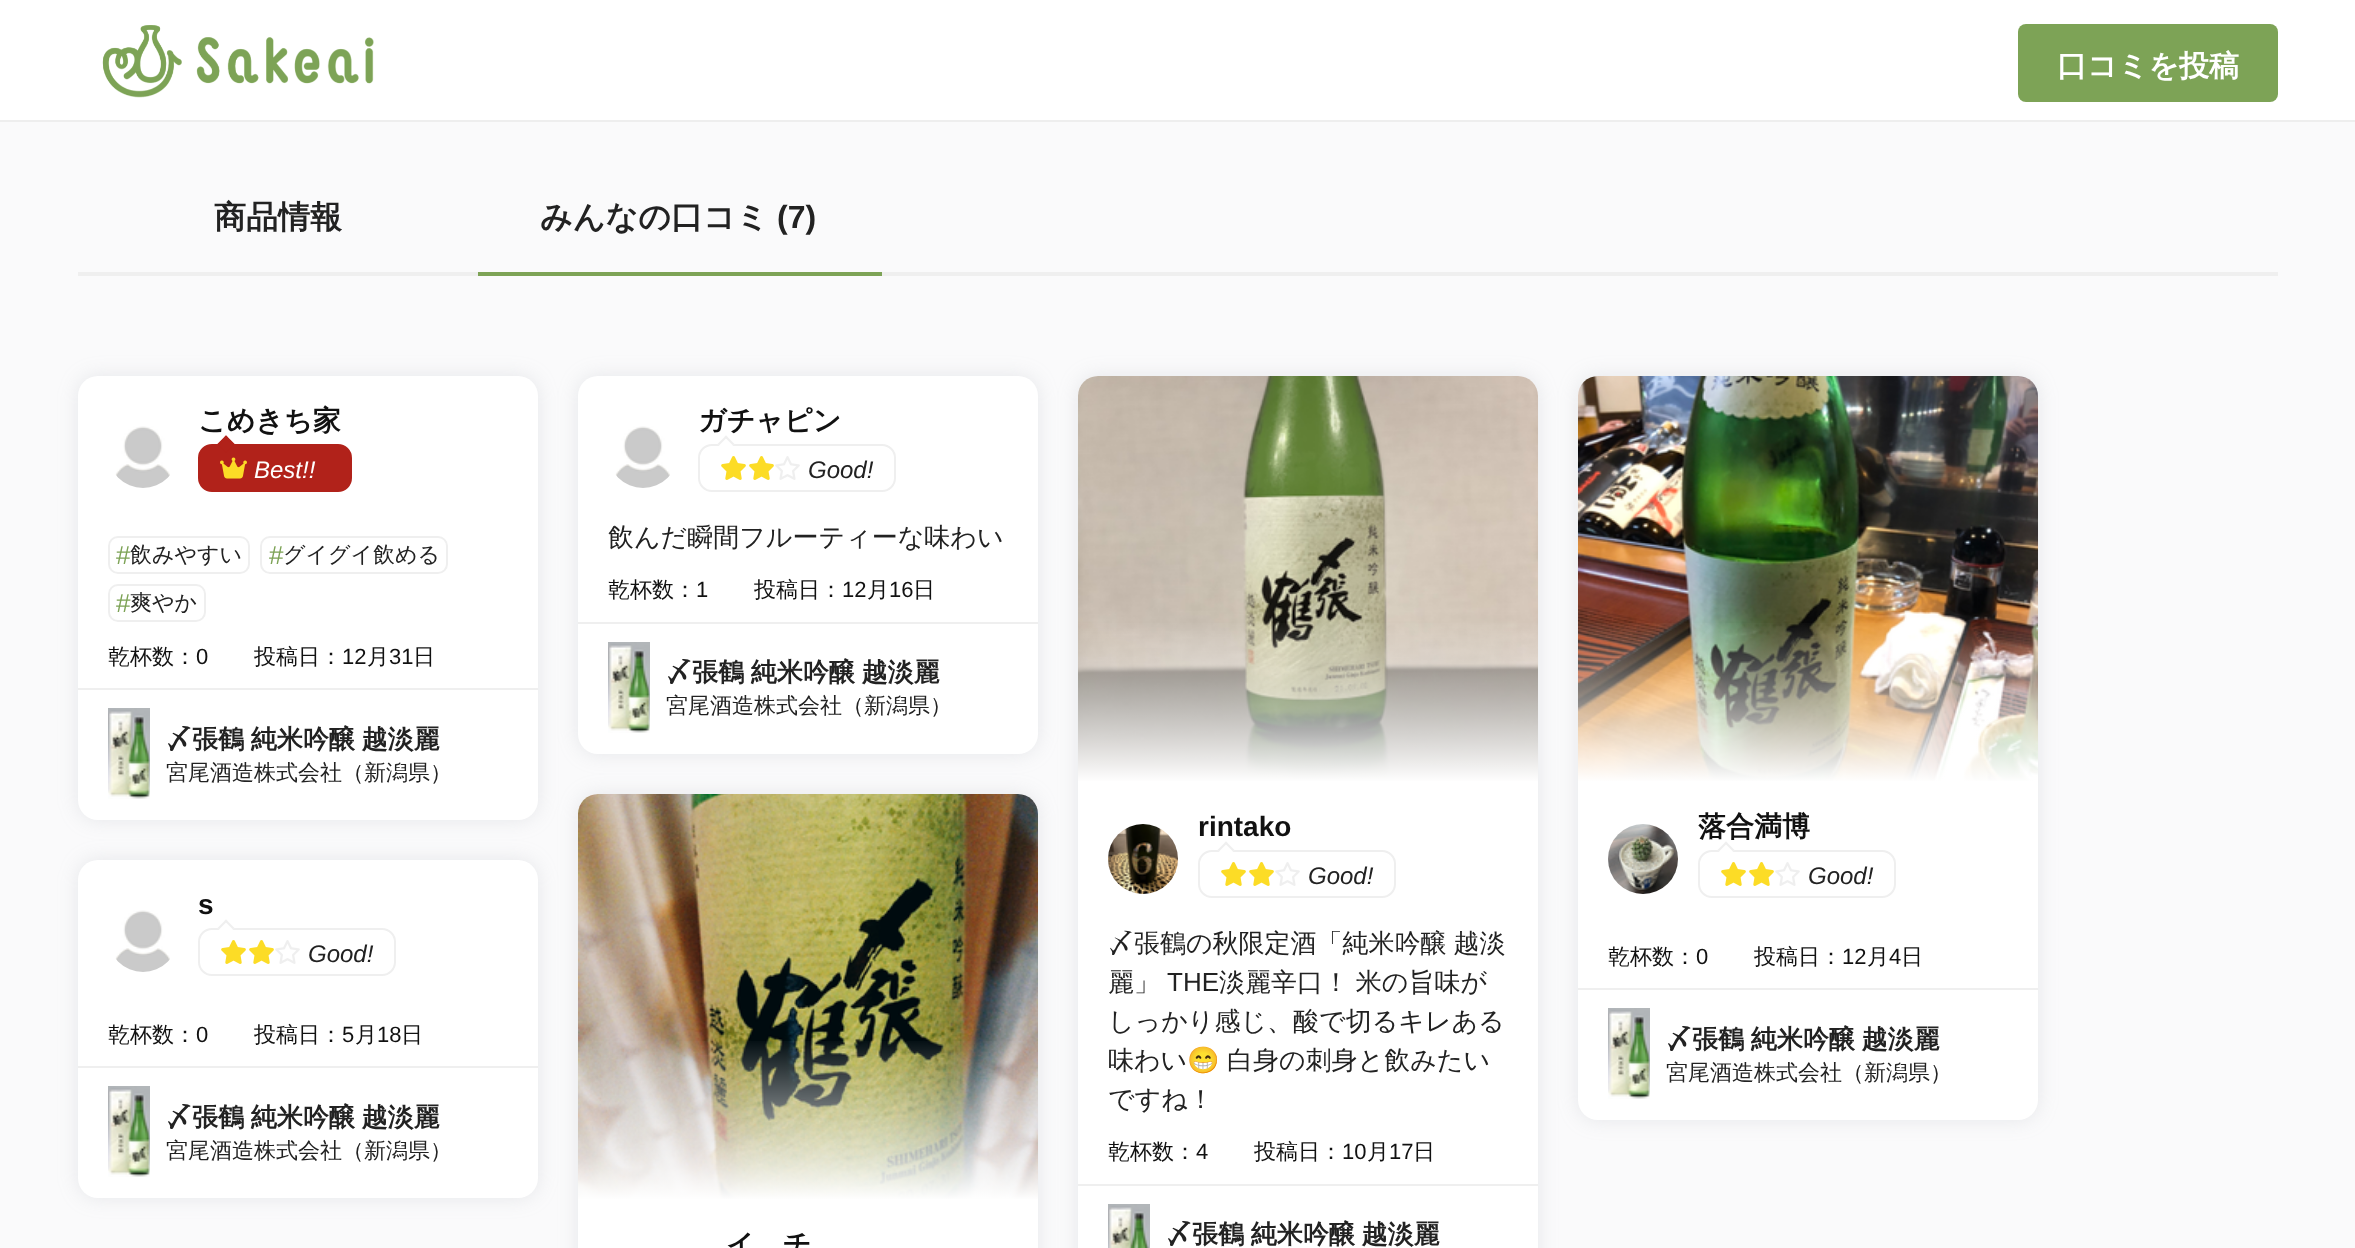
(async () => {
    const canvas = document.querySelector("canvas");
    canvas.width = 2355;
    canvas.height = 1248;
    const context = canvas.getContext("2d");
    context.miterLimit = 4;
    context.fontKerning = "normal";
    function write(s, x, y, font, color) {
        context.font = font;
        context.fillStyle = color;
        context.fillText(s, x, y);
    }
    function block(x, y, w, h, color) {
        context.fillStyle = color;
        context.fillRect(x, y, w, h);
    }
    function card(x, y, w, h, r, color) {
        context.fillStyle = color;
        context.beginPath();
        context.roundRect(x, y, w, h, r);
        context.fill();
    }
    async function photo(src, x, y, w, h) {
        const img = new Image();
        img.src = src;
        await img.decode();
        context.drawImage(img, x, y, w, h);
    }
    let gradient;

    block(0, 0, 2355, 1248, "rgb(250, 250, 251)");
    block(0, 0, 2355, 120, "rgb(255, 255, 255)");
    block(0, 120, 2355, 2, "rgb(238, 238, 238)");
    await photo("media/1.png", 102, 25, 272, 73);
    card(2018, 24, 260, 78, 8, "rgb(125, 163, 86)");
    write("口コミを投稿", 2057, 76, "bold 30px WenQuanYi Zen Hei", "rgb(255, 255, 255)");
    block(78, 272, 2200, 4, "rgb(239, 239, 239)");
    write("商品情報", 214, 228, "bold 32px WenQuanYi Zen Hei", "rgb(34, 34, 34)");
    write("みんなの口コミ", 540, 228, "bold 32px WenQuanYi Zen Hei", "rgb(34, 34, 34)");
    write("(7)", 777, 228, "bold 32px Liberation Sans", "rgb(34, 34, 34)");
    block(478, 272, 404, 4, "rgb(125, 163, 86)");
    context.fillStyle = "rgba(149, 157, 165, 0.2)";
    context.filter = "blur(10px)";
    context.beginPath();
    context.roundRect(78, 376, 460, 444, 20);
    context.fill();
    context.filter = "none";
    card(78, 376, 460, 444, 20, "rgb(255, 255, 255)");
    await photo("media/2.png", 115, 426, 55, 62);
    write("こめきち家", 198, 430, "bold 28px WenQuanYi Zen Hei", "rgb(17, 17, 17)");
    context.fillStyle = "rgb(177, 34, 26)";
    context.beginPath();
    context.roundRect(199, 445, 152, 46, 13);
    context.fill();
    context.strokeStyle = "rgb(177, 34, 26)";
    context.lineWidth = 2;
    context.stroke();
    context.beginPath();
    context.moveTo(226, 435.5);
    context.lineTo(234.5, 444);
    context.lineTo(226, 452.5);
    context.lineTo(217.5, 444);
    context.closePath();
    context.fill();
    context.beginPath();
    context.moveTo(226, 435.5);
    context.lineTo(234.5, 444);
    context.lineTo(233, 445.5);
    context.lineTo(224.5, 437);
    context.closePath();
    context.fill();
    context.beginPath();
    context.moveTo(226, 435.5);
    context.lineTo(227.5, 437);
    context.lineTo(219, 445.5);
    context.lineTo(217.5, 444);
    context.closePath();
    context.fill();
    await photo("media/3.png", 220, 457, 27, 22);
    write("Best!!", 254, 478, "italic 24px Liberation Sans", "rgb(255, 255, 255)");
    context.beginPath();
    context.roundRect(109, 537, 140, 36, 9);
    context.strokeStyle = "rgb(239, 239, 239)";
    context.stroke();
    write("#", 116, 564, "26px Liberation Sans", "rgb(125, 163, 86)");
    write("飲みやすい", 130, 562, "500 22px WenQuanYi Zen Hei", "rgb(34, 34, 34)");
    context.beginPath();
    context.roundRect(261, 537, 186, 36, 9);
    context.stroke();
    write("#", 269, 564, "26px Liberation Sans", "rgb(125, 163, 86)");
    write("グイグイ飲める", 283, 562, "500 22px WenQuanYi Zen Hei", "rgb(34, 34, 34)");
    context.beginPath();
    context.roundRect(109, 585, 96, 36, 9);
    context.stroke();
    write("#", 116, 612, "26px Liberation Sans", "rgb(125, 163, 86)");
    write("爽やか", 130, 610, "500 22px WenQuanYi Zen Hei", "rgb(34, 34, 34)");
    write("乾杯数：", 108, 664, "500 22px WenQuanYi Zen Hei", "rgb(17, 17, 17)");
    write("0", 196, 664, "22px Liberation Sans", "rgb(17, 17, 17)");
    write("投稿日：", 254, 664, "500 22px WenQuanYi Zen Hei", "rgb(17, 17, 17)");
    write("12", 342, 664, "22px Liberation Sans", "rgb(17, 17, 17)");
    write("月", 367, 664, "500 22px WenQuanYi Zen Hei", "rgb(17, 17, 17)");
    write("31", 389, 664, "22px Liberation Sans", "rgb(17, 17, 17)");
    write("日", 413, 664, "500 22px WenQuanYi Zen Hei", "rgb(17, 17, 17)");
    block(78, 688, 460, 2, "rgb(239, 239, 239)");
    await photo("media/4.png", 108, 708, 42, 91);
    context.wordSpacing = "-1px";
    write("〆張鶴 純米吟醸 越淡麗", 166, 748, "bold 26px WenQuanYi Zen Hei", "rgb(34, 34, 34)");
    context.wordSpacing = "0px";
    write("宮尾酒造株式会社（新潟県）", 166, 780, "500 22px WenQuanYi Zen Hei", "rgb(34, 34, 34)");
    context.fillStyle = "rgba(149, 157, 165, 0.2)";
    context.filter = "blur(10px)";
    context.beginPath();
    context.roundRect(578, 376, 460, 378, 20);
    context.fill();
    context.filter = "none";
    card(578, 376, 460, 378, 20, "rgb(255, 255, 255)");
    await photo("media/5.png", 615, 426, 55, 62);
    write("ガチャピン", 698, 430, "bold 28px WenQuanYi Zen Hei", "rgb(17, 17, 17)");
    context.beginPath();
    context.roundRect(699, 445, 196, 46, 13);
    context.stroke();
    context.fillStyle = "rgb(255, 255, 255)";
    context.beginPath();
    context.moveTo(726, 435.5);
    context.lineTo(734.5, 444);
    context.lineTo(726, 452.5);
    context.lineTo(717.5, 444);
    context.closePath();
    context.fill();
    context.fillStyle = "rgb(239, 239, 239)";
    context.beginPath();
    context.moveTo(726, 435.5);
    context.lineTo(734.5, 444);
    context.lineTo(733, 445.5);
    context.lineTo(724.5, 437);
    context.closePath();
    context.fill();
    context.beginPath();
    context.moveTo(726, 435.5);
    context.lineTo(727.5, 437);
    context.lineTo(719, 445.5);
    context.lineTo(717.5, 444);
    context.closePath();
    context.fill();
    await photo("media/6.png", 721, 456, 25, 24);
    await photo("media/6.png", 749, 456, 25, 24);
    await photo("media/7.png", 775, 456, 25, 24);
    write("Good!", 808, 478, "italic 24px Liberation Sans", "rgb(34, 34, 34)");
    write("飲んだ瞬間フルーティーな味わい", 608, 546, "500 26px WenQuanYi Zen Hei", "rgb(34, 34, 34)");
    write("乾杯数：", 608, 597, "500 22px WenQuanYi Zen Hei", "rgb(17, 17, 17)");
    write("1", 696, 597, "22px Liberation Sans", "rgb(17, 17, 17)");
    write("投稿日：", 754, 597, "500 22px WenQuanYi Zen Hei", "rgb(17, 17, 17)");
    write("12", 842, 597, "22px Liberation Sans", "rgb(17, 17, 17)");
    write("月", 867, 597, "500 22px WenQuanYi Zen Hei", "rgb(17, 17, 17)");
    write("16", 889, 597, "22px Liberation Sans", "rgb(17, 17, 17)");
    write("日", 913, 597, "500 22px WenQuanYi Zen Hei", "rgb(17, 17, 17)");
    block(578, 622, 460, 2, "rgb(239, 239, 239)");
    await photo("media/8.png", 608, 642, 42, 91);
    context.wordSpacing = "-1px";
    write("〆張鶴 純米吟醸 越淡麗", 666, 681, "bold 26px WenQuanYi Zen Hei", "rgb(34, 34, 34)");
    context.wordSpacing = "0px";
    write("宮尾酒造株式会社（新潟県）", 666, 713, "500 22px WenQuanYi Zen Hei", "rgb(34, 34, 34)");
    context.fillStyle = "rgba(149, 157, 165, 0.2)";
    context.filter = "blur(10px)";
    context.beginPath();
    context.roundRect(78, 860, 460, 338, 20);
    context.fill();
    context.filter = "none";
    card(78, 860, 460, 338, 20, "rgb(255, 255, 255)");
    await photo("media/2.png", 115, 910, 55, 62);
    write("s", 198, 914, "bold 28px Liberation Sans", "rgb(17, 17, 17)");
    context.beginPath();
    context.roundRect(199, 929, 196, 46, 13);
    context.stroke();
    context.fillStyle = "rgb(255, 255, 255)";
    context.beginPath();
    context.moveTo(226, 919.5);
    context.lineTo(234.5, 928);
    context.lineTo(226, 936.5);
    context.lineTo(217.5, 928);
    context.closePath();
    context.fill();
    context.fillStyle = "rgb(239, 239, 239)";
    context.beginPath();
    context.moveTo(226, 919.5);
    context.lineTo(234.5, 928);
    context.lineTo(233, 929.5);
    context.lineTo(224.5, 921);
    context.closePath();
    context.fill();
    context.beginPath();
    context.moveTo(226, 919.5);
    context.lineTo(227.5, 921);
    context.lineTo(219, 929.5);
    context.lineTo(217.5, 928);
    context.closePath();
    context.fill();
    await photo("media/6.png", 221, 940, 25, 24);
    await photo("media/6.png", 249, 940, 25, 24);
    await photo("media/7.png", 275, 940, 25, 24);
    write("Good!", 308, 962, "italic 24px Liberation Sans", "rgb(34, 34, 34)");
    write("乾杯数：", 108, 1042, "500 22px WenQuanYi Zen Hei", "rgb(17, 17, 17)");
    write("0", 196, 1042, "22px Liberation Sans", "rgb(17, 17, 17)");
    write("投稿日：", 254, 1042, "500 22px WenQuanYi Zen Hei", "rgb(17, 17, 17)");
    write("5", 342, 1042, "22px Liberation Sans", "rgb(17, 17, 17)");
    write("月", 355, 1042, "500 22px WenQuanYi Zen Hei", "rgb(17, 17, 17)");
    write("18", 377, 1042, "22px Liberation Sans", "rgb(17, 17, 17)");
    write("日", 401, 1042, "500 22px WenQuanYi Zen Hei", "rgb(17, 17, 17)");
    block(78, 1066, 460, 2, "rgb(239, 239, 239)");
    await photo("media/8.png", 108, 1086, 42, 91);
    context.wordSpacing = "-1px";
    write("〆張鶴 純米吟醸 越淡麗", 166, 1126, "bold 26px WenQuanYi Zen Hei", "rgb(34, 34, 34)");
    context.wordSpacing = "0px";
    write("宮尾酒造株式会社（新潟県）", 166, 1158, "500 22px WenQuanYi Zen Hei", "rgb(34, 34, 34)");
    context.fillStyle = "rgba(149, 157, 165, 0.2)";
    context.filter = "blur(10px)";
    context.beginPath();
    context.roundRect(1078, 376, 460, 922, 20);
    context.fill();
    context.filter = "none";
    card(1078, 376, 460, 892, 20, "rgb(255, 255, 255)");
    await photo("media/9.png", 1078, 376, 460, 405);
    gradient = context.createLinearGradient(1308, 376, 1308, 782);
    gradient.addColorStop(0, "rgba(0, 0, 0, 0)");
    gradient.addColorStop(0.6, "rgba(255, 255, 255, 0)");
    gradient.addColorStop(1, "rgb(255, 255, 255)");
    context.fillStyle = gradient;
    context.fillRect(1078, 623, 460, 158);
    await photo("media/10.png", 1108, 824, 70, 70);
    write("rintako", 1198, 836, "bold 28px Liberation Sans", "rgb(17, 17, 17)");
    context.beginPath();
    context.roundRect(1199, 851, 196, 46, 13);
    context.stroke();
    context.fillStyle = "rgb(255, 255, 255)";
    context.beginPath();
    context.moveTo(1226, 841.5);
    context.lineTo(1234.5, 850);
    context.lineTo(1226, 858.5);
    context.lineTo(1217.5, 850);
    context.closePath();
    context.fill();
    context.fillStyle = "rgb(239, 239, 239)";
    context.beginPath();
    context.moveTo(1226, 841.5);
    context.lineTo(1234.5, 850);
    context.lineTo(1233, 851.5);
    context.lineTo(1224.5, 843);
    context.closePath();
    context.fill();
    context.beginPath();
    context.moveTo(1226, 841.5);
    context.lineTo(1227.5, 843);
    context.lineTo(1219, 851.5);
    context.lineTo(1217.5, 850);
    context.closePath();
    context.fill();
    await photo("media/6.png", 1221, 862, 25, 24);
    await photo("media/6.png", 1249, 862, 25, 24);
    await photo("media/7.png", 1275, 862, 25, 24);
    write("Good!", 1308, 884, "italic 24px Liberation Sans", "rgb(34, 34, 34)");
    context.wordSpacing = "-1px";
    write("〆張鶴の秋限定酒「純米吟醸 越淡", 1108, 952, "500 26px WenQuanYi Zen Hei", "rgb(34, 34, 34)");
    context.wordSpacing = "0px";
    write("麗」", 1108, 991, "500 26px WenQuanYi Zen Hei", "rgb(34, 34, 34)");
    write("THE", 1167, 991, "26px Liberation Sans", "rgb(34, 34, 34)");
    context.wordSpacing = "-1px";
    write("淡麗辛口！ 米の旨味が", 1219, 991, "500 26px WenQuanYi Zen Hei", "rgb(34, 34, 34)");
    context.wordSpacing = "0px";
    write("しっかり感じ、酸で切るキレある", 1108, 1030, "500 26px WenQuanYi Zen Hei", "rgb(34, 34, 34)");
    write("味わい", 1108, 1069, "500 26px WenQuanYi Zen Hei", "rgb(34, 34, 34)");
    write("😁", 1187, 1069, "26px Noto Color Emoji", "rgb(34, 34, 34)");
    write("白身の刺身と飲みたい", 1227, 1069, "500 26px WenQuanYi Zen Hei", "rgb(34, 34, 34)");
    write("ですね！", 1108, 1108, "500 26px WenQuanYi Zen Hei", "rgb(34, 34, 34)");
    write("乾杯数：", 1108, 1159, "500 22px WenQuanYi Zen Hei", "rgb(17, 17, 17)");
    write("4", 1196, 1159, "22px Liberation Sans", "rgb(17, 17, 17)");
    write("投稿日：", 1254, 1159, "500 22px WenQuanYi Zen Hei", "rgb(17, 17, 17)");
    write("10", 1342, 1159, "22px Liberation Sans", "rgb(17, 17, 17)");
    write("月", 1367, 1159, "500 22px WenQuanYi Zen Hei", "rgb(17, 17, 17)");
    write("17", 1389, 1159, "22px Liberation Sans", "rgb(17, 17, 17)");
    write("日", 1413, 1159, "500 22px WenQuanYi Zen Hei", "rgb(17, 17, 17)");
    block(1078, 1184, 460, 2, "rgb(239, 239, 239)");
    await photo("media/11.png", 1108, 1204, 42, 44);
    context.wordSpacing = "-1px";
    write("〆張鶴 純米吟醸 越淡麗", 1166, 1243, "bold 26px WenQuanYi Zen Hei", "rgb(34, 34, 34)");
    context.fillStyle = "rgba(149, 157, 165, 0.2)";
    context.filter = "blur(10px)";
    context.beginPath();
    context.roundRect(1578, 376, 460, 744, 20);
    context.fill();
    context.filter = "none";
    card(1578, 376, 460, 744, 20, "rgb(255, 255, 255)");
    await photo("media/12.png", 1578, 376, 460, 405);
    gradient = context.createLinearGradient(1808, 376, 1808, 782);
    gradient.addColorStop(0, "rgba(0, 0, 0, 0)");
    gradient.addColorStop(0.6, "rgba(255, 255, 255, 0)");
    gradient.addColorStop(1, "rgb(255, 255, 255)");
    context.fillStyle = gradient;
    context.fillRect(1578, 623, 460, 158);
    await photo("media/13.png", 1608, 824, 70, 70);
    context.wordSpacing = "0px";
    write("落合満博", 1698, 836, "bold 28px WenQuanYi Zen Hei", "rgb(17, 17, 17)");
    context.beginPath();
    context.roundRect(1699, 851, 196, 46, 13);
    context.stroke();
    context.fillStyle = "rgb(255, 255, 255)";
    context.beginPath();
    context.moveTo(1726, 841.5);
    context.lineTo(1734.5, 850);
    context.lineTo(1726, 858.5);
    context.lineTo(1717.5, 850);
    context.closePath();
    context.fill();
    context.fillStyle = "rgb(239, 239, 239)";
    context.beginPath();
    context.moveTo(1726, 841.5);
    context.lineTo(1734.5, 850);
    context.lineTo(1733, 851.5);
    context.lineTo(1724.5, 843);
    context.closePath();
    context.fill();
    context.beginPath();
    context.moveTo(1726, 841.5);
    context.lineTo(1727.5, 843);
    context.lineTo(1719, 851.5);
    context.lineTo(1717.5, 850);
    context.closePath();
    context.fill();
    await photo("media/6.png", 1721, 862, 25, 24);
    await photo("media/6.png", 1749, 862, 25, 24);
    await photo("media/7.png", 1775, 862, 25, 24);
    write("Good!", 1808, 884, "italic 24px Liberation Sans", "rgb(34, 34, 34)");
    write("乾杯数：", 1608, 964, "500 22px WenQuanYi Zen Hei", "rgb(17, 17, 17)");
    write("0", 1696, 964, "22px Liberation Sans", "rgb(17, 17, 17)");
    write("投稿日：", 1754, 964, "500 22px WenQuanYi Zen Hei", "rgb(17, 17, 17)");
    write("12", 1842, 964, "22px Liberation Sans", "rgb(17, 17, 17)");
    write("月", 1867, 964, "500 22px WenQuanYi Zen Hei", "rgb(17, 17, 17)");
    write("4", 1889, 964, "22px Liberation Sans", "rgb(17, 17, 17)");
    write("日", 1901, 964, "500 22px WenQuanYi Zen Hei", "rgb(17, 17, 17)");
    block(1578, 988, 460, 2, "rgb(239, 239, 239)");
    await photo("media/8.png", 1608, 1008, 42, 91);
    context.wordSpacing = "-1px";
    write("〆張鶴 純米吟醸 越淡麗", 1666, 1048, "bold 26px WenQuanYi Zen Hei", "rgb(34, 34, 34)");
    context.wordSpacing = "0px";
    write("宮尾酒造株式会社（新潟県）", 1666, 1080, "500 22px WenQuanYi Zen Hei", "rgb(34, 34, 34)");
    context.fillStyle = "rgba(149, 157, 165, 0.2)";
    context.filter = "blur(10px)";
    context.beginPath();
    context.roundRect(578, 794, 460, 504, 20);
    context.fill();
    context.filter = "none";
    card(578, 794, 460, 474, 20, "rgb(255, 255, 255)");
    await photo("media/14.png", 578, 794, 460, 405);
    gradient = context.createLinearGradient(808, 794, 808, 1200);
    gradient.addColorStop(0, "rgba(0, 0, 0, 0)");
    gradient.addColorStop(0.6, "rgba(255, 255, 255, 0)");
    gradient.addColorStop(1, "rgb(255, 255, 255)");
    context.fillStyle = gradient;
    context.fillRect(578, 1041, 460, 158);
    write("イ　チ", 726, 1254, "bold 28px WenQuanYi Zen Hei", "rgb(17, 17, 17)");
})();
